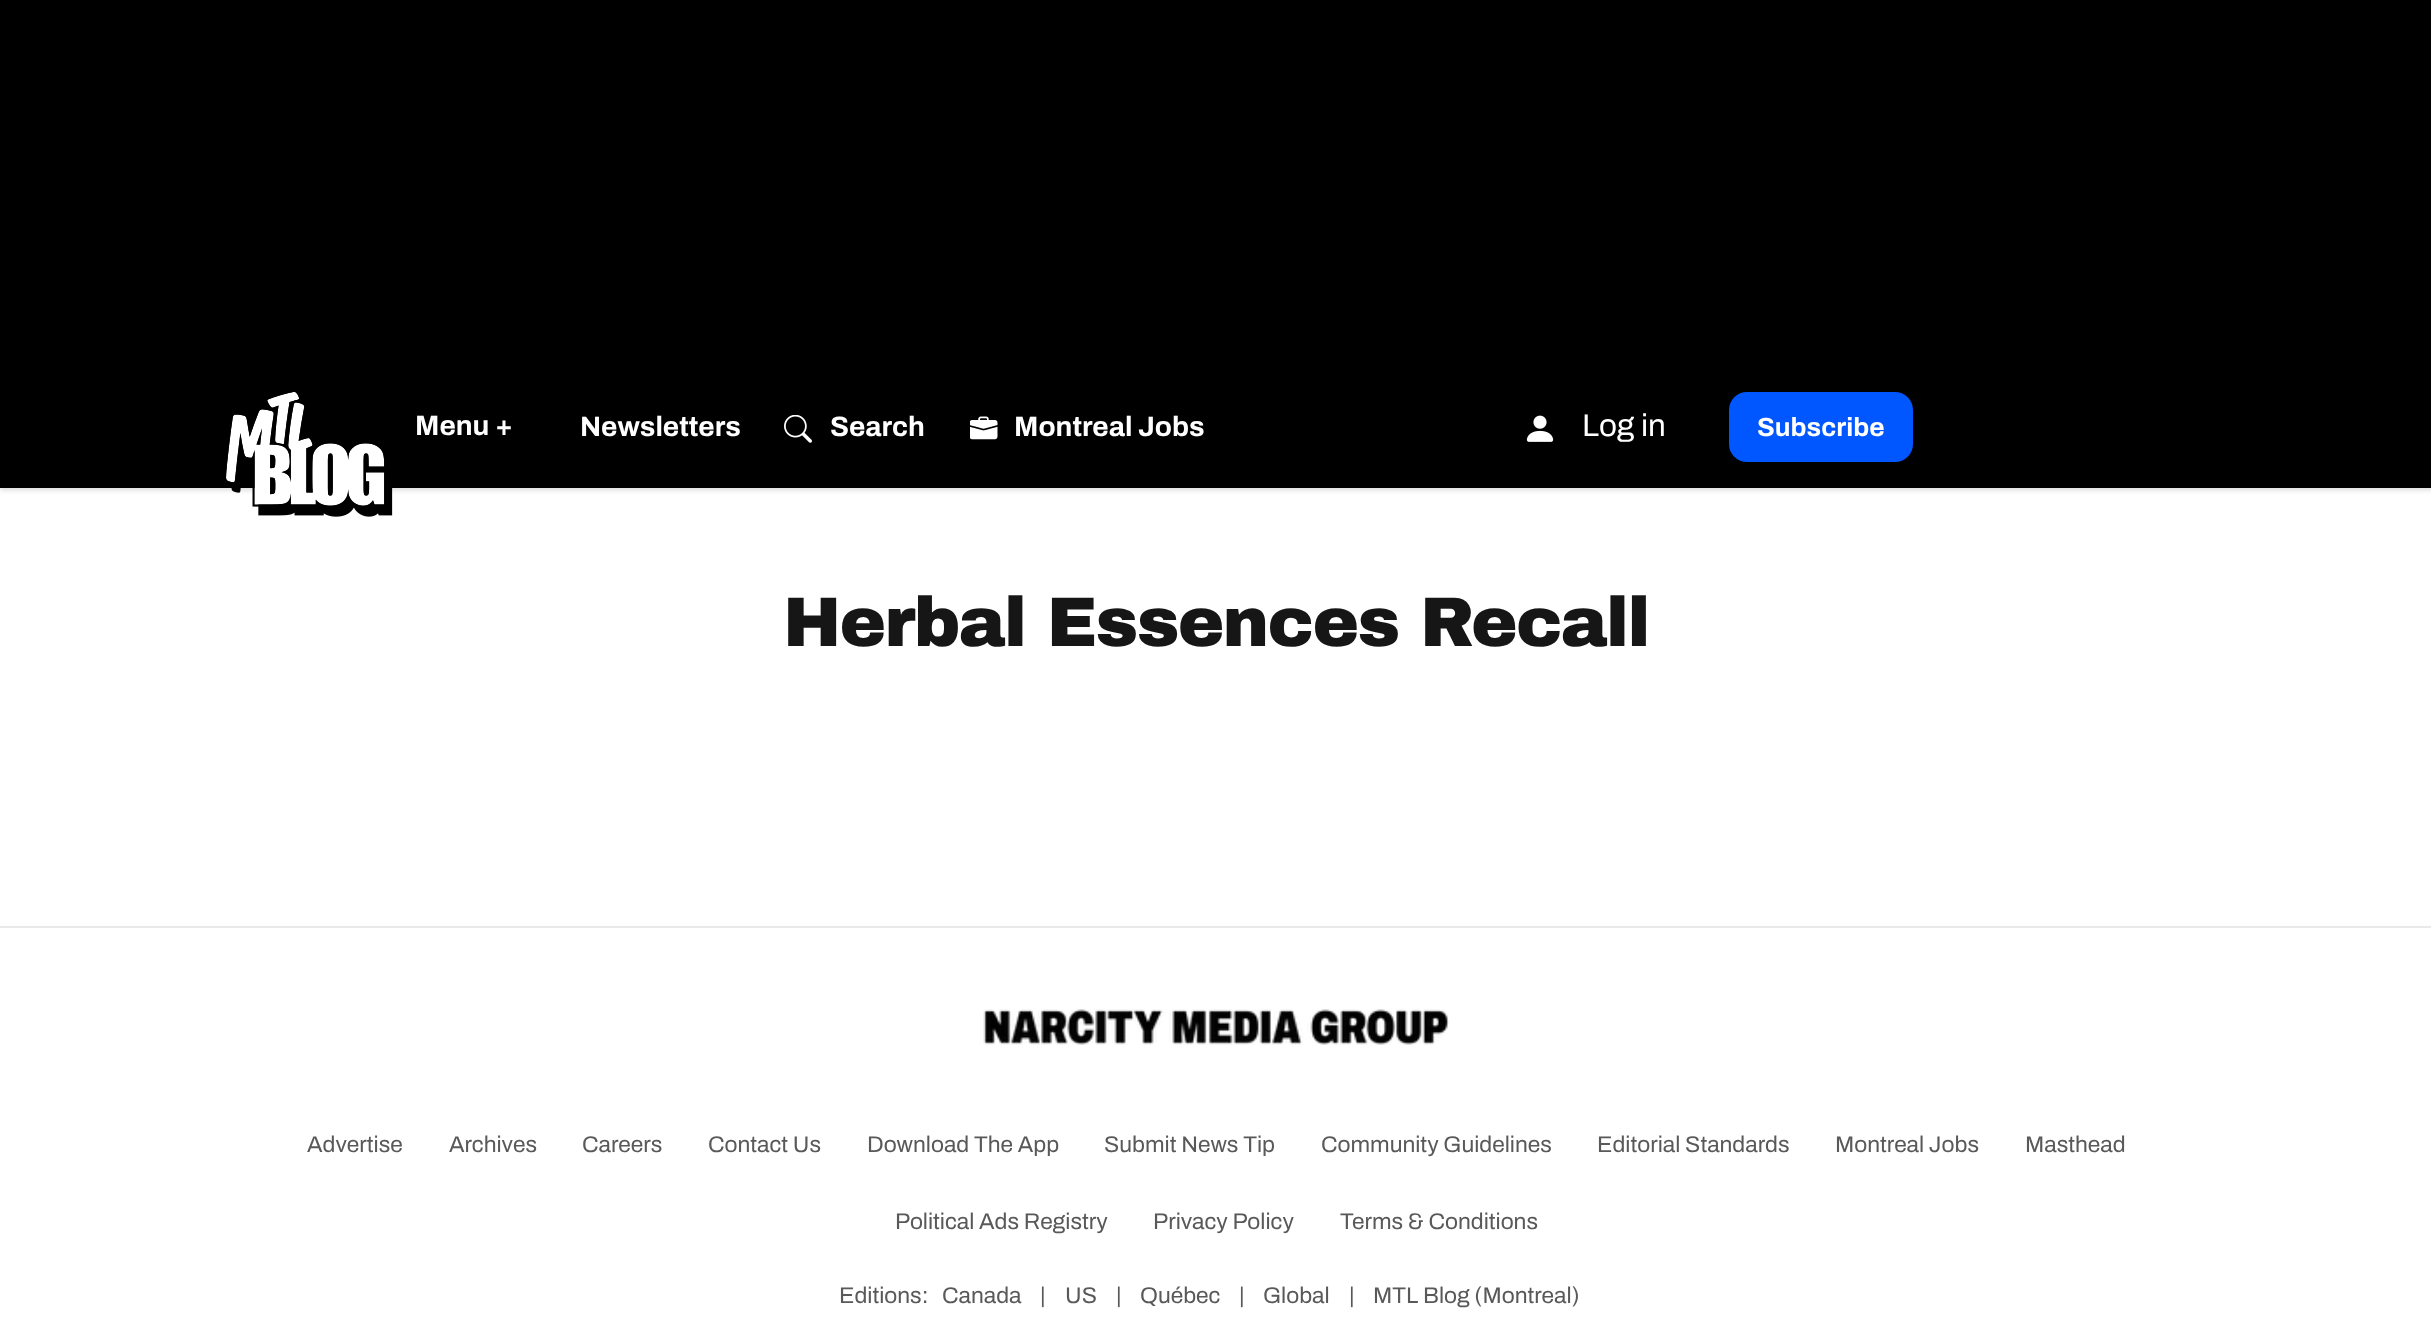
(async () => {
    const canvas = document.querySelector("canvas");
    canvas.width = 2431;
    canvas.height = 1344;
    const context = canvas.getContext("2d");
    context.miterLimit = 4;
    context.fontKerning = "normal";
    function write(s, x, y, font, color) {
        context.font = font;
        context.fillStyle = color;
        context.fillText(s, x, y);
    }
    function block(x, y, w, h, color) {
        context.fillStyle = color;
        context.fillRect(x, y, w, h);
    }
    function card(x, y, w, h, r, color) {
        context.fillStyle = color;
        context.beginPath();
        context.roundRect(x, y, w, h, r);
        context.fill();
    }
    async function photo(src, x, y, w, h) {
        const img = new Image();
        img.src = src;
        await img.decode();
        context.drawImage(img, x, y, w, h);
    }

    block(0, 0, 2431, 1344, "rgb(255, 255, 255)");
    block(0, 0, 2431, 366, "rgb(0, 0, 0)");
    context.fillStyle = "rgba(0, 0, 0, 0.15)";
    context.filter = "blur(2.5px)";
    context.beginPath();
    context.rect(0, 368, 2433, 122);
    context.fill();
    context.filter = "none";
    block(0, 366, 2431, 122, "rgb(0, 0, 0)");
    await photo("media/1.png", 226, 392, 167, 125);
    write("Menu +", 415, 435, "bold 28px Archivo", "rgb(255, 255, 255)");
    write("Newsletters", 580, 436, "bold 28px Archivo", "rgb(255, 255, 255)");
    await photo("media/2.png", 784, 415, 28, 28);
    write("Search", 830, 436, "bold 28px Archivo", "rgb(255, 255, 255)");
    await photo("media/3.png", 970, 416, 28, 24);
    write("Montreal Jobs", 1014, 436, "bold 28px Archivo", "rgb(255, 255, 255)");
    await photo("media/4.png", 1526, 415, 28, 27);
    write("Log in", 1582, 436, "31.5px Archivo", "rgb(255, 255, 255)");
    card(1729, 392, 184, 70, 18, "rgb(0, 87, 255)");
    write("Subscribe", 1757, 436, "bold 26.25px Archivo", "rgb(255, 255, 255)");
    context.letterSpacing = "-1.75px";
    write("Herbal Essences Recall", 783, 646, "900 70px Archivo Black", "rgb(22, 22, 22)");
    block(0, 926, 2431, 2, "rgb(233, 233, 233)");
    await photo("media/5.png", 983, 1009, 466, 36);
    context.letterSpacing = "0px";
    write("Advertise", 307, 1152, "22.75px Archivo", "rgb(89, 89, 89)");
    write("Archives", 449, 1152, "22.75px Archivo", "rgb(89, 89, 89)");
    write("Careers", 582, 1152, "22.75px Archivo", "rgb(89, 89, 89)");
    write("Contact Us", 708, 1152, "22.75px Archivo", "rgb(89, 89, 89)");
    write("Download The App", 867, 1152, "22.75px Archivo", "rgb(89, 89, 89)");
    write("Submit News Tip", 1104, 1152, "22.75px Archivo", "rgb(89, 89, 89)");
    write("Community Guidelines", 1321, 1152, "22.75px Archivo", "rgb(89, 89, 89)");
    write("Editorial Standards", 1597, 1152, "22.75px Archivo", "rgb(89, 89, 89)");
    write("Montreal Jobs", 1835, 1152, "22.75px Archivo", "rgb(89, 89, 89)");
    write("Masthead", 2025, 1152, "22.75px Archivo", "rgb(89, 89, 89)");
    write("Political Ads Registry", 895, 1229, "22.75px Archivo", "rgb(89, 89, 89)");
    write("Privacy Policy", 1153, 1229, "22.75px Archivo", "rgb(89, 89, 89)");
    write("Terms & Conditions", 1340, 1229, "22.75px Archivo", "rgb(89, 89, 89)");
    write("Editions:", 839, 1303, "22.75px Archivo", "rgb(89, 89, 89)");
    write("Canada", 942, 1303, "22.75px Archivo", "rgb(89, 89, 89)");
    write("|", 1040, 1303, "22.75px Archivo", "rgb(89, 89, 89)");
    write("US", 1065, 1303, "22.75px Archivo", "rgb(89, 89, 89)");
    write("|", 1116, 1303, "22.75px Archivo", "rgb(89, 89, 89)");
    write("Québec", 1140, 1303, "22.75px Archivo", "rgb(89, 89, 89)");
    write("|", 1239, 1303, "22.75px Archivo", "rgb(89, 89, 89)");
    write("Global", 1263, 1303, "22.75px Archivo", "rgb(89, 89, 89)");
    write("|", 1349, 1303, "22.75px Archivo", "rgb(89, 89, 89)");
    write("MTL Blog (Montreal)", 1373, 1303, "22.75px Archivo", "rgb(89, 89, 89)");
})();
